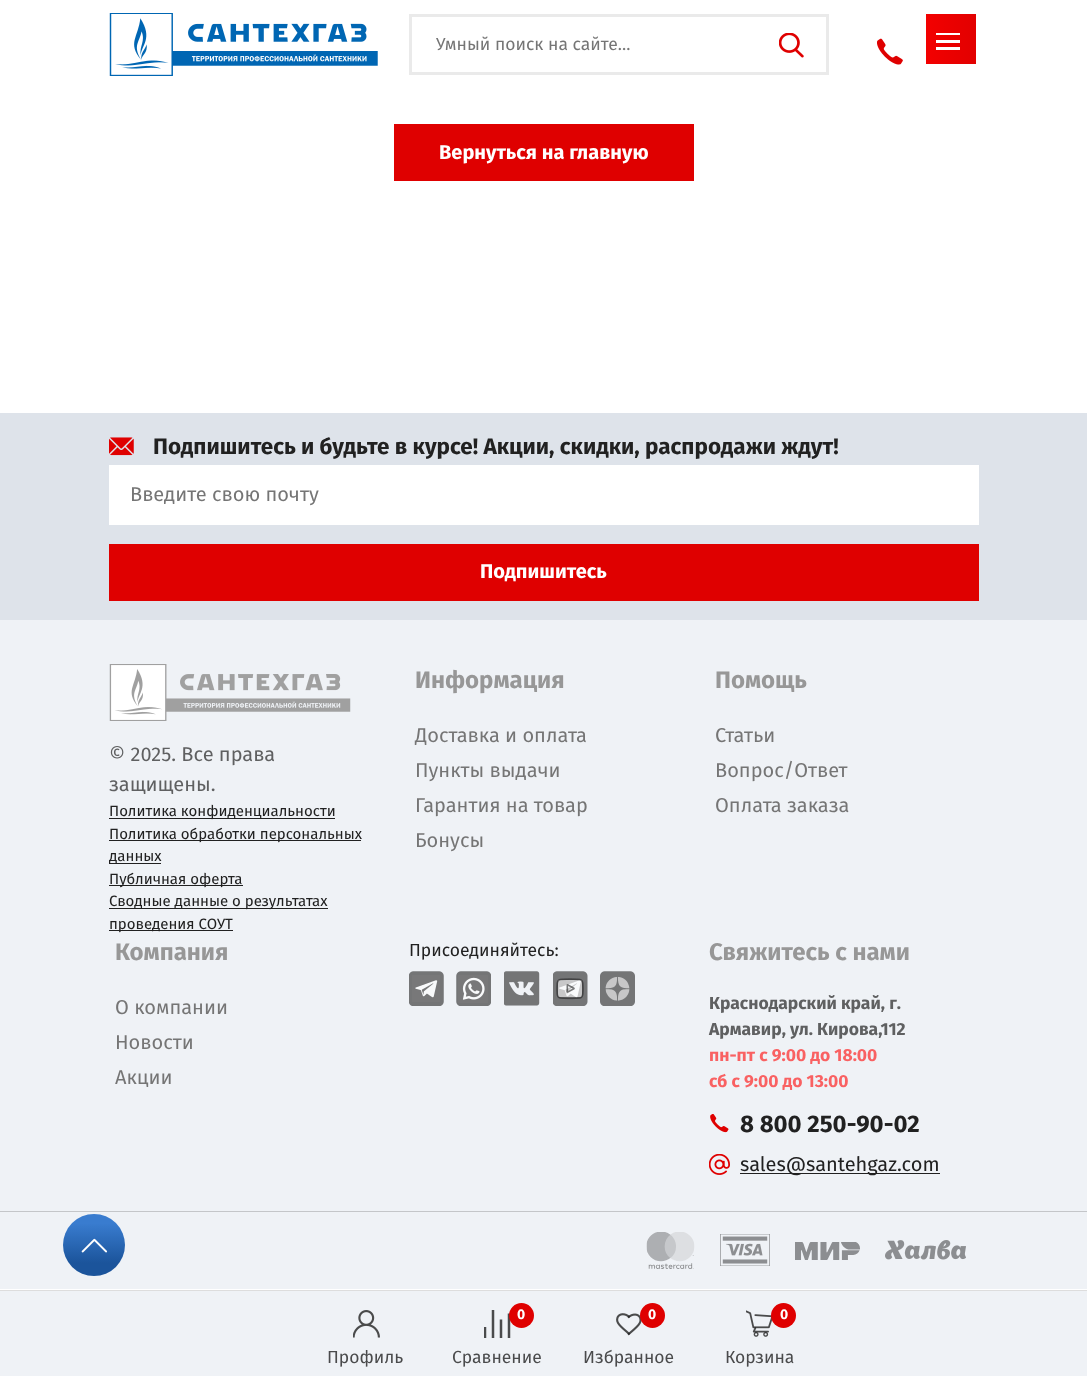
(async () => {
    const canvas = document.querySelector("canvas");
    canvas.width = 1087;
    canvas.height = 1376;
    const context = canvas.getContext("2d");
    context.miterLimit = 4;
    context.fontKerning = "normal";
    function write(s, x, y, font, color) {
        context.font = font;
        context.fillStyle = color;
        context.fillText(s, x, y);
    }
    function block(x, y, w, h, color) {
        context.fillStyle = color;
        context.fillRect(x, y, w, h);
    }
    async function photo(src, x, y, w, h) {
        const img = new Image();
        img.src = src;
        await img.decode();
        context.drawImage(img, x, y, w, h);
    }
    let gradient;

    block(0, 0, 1087, 1376, "rgb(255, 255, 255)");
    await photo("media/1.png", 109, 13, 269, 63);
    context.strokeStyle = "rgb(234, 234, 234)";
    context.lineWidth = 3;
    context.strokeRect(410.5, 15.5, 417, 58);
    write("Умный поиск на сайте...", 436, 50, "17.5px Fira Sans", "rgb(117, 117, 117)");
    await photo("media/2.png", 779, 33, 25, 25);
    await photo("media/3.png", 877, 38, 26, 27);
    gradient = context.createLinearGradient(985, 39, 891, 39);
    gradient.addColorStop(0, "rgb(223, 0, 0)");
    gradient.addColorStop(1, "rgb(255, 0, 0)");
    context.fillStyle = gradient;
    context.fillRect(926, 14, 50, 50);
    block(936, 33, 24, 2, "rgb(255, 255, 255)");
    block(936, 40, 24, 3, "rgb(255, 255, 255)");
    block(936, 47, 24, 3, "rgb(255, 255, 255)");
    block(394, 124, 300, 57, "rgb(223, 0, 0)");
    write("Вернуться на главную", 439, 159, "bold 20px Fira Sans", "rgb(255, 255, 255)");
    block(0, 413, 1087, 207, "rgb(222, 227, 234)");
    await photo("media/4.png", 109, 437, 25, 19);
    write("Подпишитесь и будьте в курсе! Акции, скидки, распродажи ждут!", 153, 454, "bold 22.5px Fira Sans", "rgb(33, 33, 33)");
    block(109, 465, 870, 60, "rgb(255, 255, 255)");
    write("Введите свою почту", 130, 501, "20px Fira Sans", "rgb(117, 117, 117)");
    block(109, 544, 870, 57, "rgb(223, 0, 0)");
    write("Подпишитесь", 480, 578, "bold 20px Fira Sans", "rgb(255, 255, 255)");
    block(0, 620, 1087, 669, "rgb(239, 242, 246)");
    await photo("media/5.png", 109, 664, 242, 57);
    write("© 2025. Все права", 109, 761, "20px Fira Sans", "rgb(95, 96, 97)");
    write("защищены.", 109, 791, "20px Fira Sans", "rgb(95, 96, 97)");
    block(109, 818, 226, 1, "rgb(33, 33, 33)");
    write("Политика конфиденциальности", 109, 816, "15px Fira Sans", "rgb(33, 33, 33)");
    block(109, 840, 252, 1, "rgb(33, 33, 33)");
    write("Политика обработки персональных", 109, 839, "15px Fira Sans", "rgb(33, 33, 33)");
    block(109, 863, 52, 1, "rgb(33, 33, 33)");
    write("данных", 109, 861, "15px Fira Sans", "rgb(33, 33, 33)");
    block(109, 885, 134, 1, "rgb(33, 33, 33)");
    write("Публичная оферта", 109, 884, "15px Fira Sans", "rgb(33, 33, 33)");
    block(109, 908, 219, 1, "rgb(33, 33, 33)");
    write("Сводные данные о результатах", 109, 906, "15px Fira Sans", "rgb(33, 33, 33)");
    block(109, 930, 124, 1, "rgb(33, 33, 33)");
    write("проведения СОУТ", 109, 929, "15px Fira Sans", "rgb(33, 33, 33)");
    write("Информация", 415, 688, "bold 24px Fira Sans", "rgb(151, 151, 151)");
    write("Доставка и оплата", 415, 742, "20px Fira Sans", "rgb(117, 117, 117)");
    write("Пункты выдачи", 415, 777, "20px Fira Sans", "rgb(117, 117, 117)");
    write("Гарантия на товар", 415, 812, "20px Fira Sans", "rgb(117, 117, 117)");
    write("Бонусы", 415, 847, "20px Fira Sans", "rgb(117, 117, 117)");
    write("Помощь", 715, 688, "bold 24px Fira Sans", "rgb(151, 151, 151)");
    write("Статьи", 715, 742, "20px Fira Sans", "rgb(117, 117, 117)");
    write("Вопрос/Ответ", 715, 777, "20px Fira Sans", "rgb(117, 117, 117)");
    write("Оплата заказа", 715, 812, "20px Fira Sans", "rgb(117, 117, 117)");
    write("Компания", 115, 960, "bold 24px Fira Sans", "rgb(151, 151, 151)");
    write("О компании", 115, 1014, "20px Fira Sans", "rgb(117, 117, 117)");
    write("Новости", 115, 1049, "20px Fira Sans", "rgb(117, 117, 117)");
    write("Акции", 115, 1084, "20px Fira Sans", "rgb(117, 117, 117)");
    write("Присоединяйтесь:", 409, 956, "17.5px Fira Sans", "rgb(33, 33, 33)");
    await photo("media/6.png", 409, 971, 35, 35);
    await photo("media/7.png", 456, 971, 35, 35);
    await photo("media/8.png", 504, 971, 36, 35);
    await photo("media/9.png", 553, 971, 35, 35);
    await photo("media/10.png", 600, 971, 35, 35);
    write("Свяжитесь с нами", 709, 960, "bold 24px Fira Sans", "rgb(151, 151, 151)");
    write("Краснодарский край, г.", 709, 1009, "bold 17.5px Fira Sans", "rgb(95, 96, 97)");
    write("Армавир, ул. Кирова,112", 709, 1035, "bold 17.5px Fira Sans", "rgb(95, 96, 97)");
    write("пн-пт с 9:00 до 18:00", 709, 1061, "bold 17.5px Fira Sans", "rgb(249, 97, 98)");
    write("сб с 9:00 до 13:00", 709, 1087, "bold 17.5px Fira Sans", "rgb(249, 97, 98)");
    await photo("media/11.png", 710, 1114, 19, 19);
    write("8 800 250-90-02", 740, 1132, "bold 24px Fira Sans", "rgb(33, 33, 33)");
    await photo("media/12.png", 709, 1154, 21, 21);
    block(740, 1173, 200, 1, "rgb(33, 33, 33)");
    write("sales@santehgaz.com", 740, 1171, "20px Fira Sans", "rgb(33, 33, 33)");
    block(0, 1211, 1087, 1, "rgb(196, 198, 201)");
    await photo("media/13.png", 646, 1232, 49, 37);
    await photo("media/14.png", 720, 1234, 50, 32);
    await photo("media/15.png", 795, 1242, 65, 18);
    await photo("media/16.png", 885, 1240, 81, 20);
    gradient = context.createLinearGradient(94, 1276, 94, 1214);
    gradient.addColorStop(0.21, "rgb(27, 84, 155)");
    gradient.addColorStop(0.85, "rgb(57, 124, 207)");
    context.fillStyle = gradient;
    context.beginPath();
    context.arc(94, 1245, 31, 0, Math.PI * 2);
    context.fill();
    await photo("media/17.png", 81, 1238, 27, 15);
    block(0, 1291, 1087, 85, "rgb(239, 242, 246)");
    block(0, 1290, 1087, 1, "rgb(221, 221, 221)");
    await photo("media/18.png", 353, 1310, 27, 28);
    write("Профиль", 327, 1363, "17.5px Fira Sans", "rgb(74, 75, 76)");
    context.save();
    context.beginPath();
    context.rect(484, 1310, 27, 28);
    context.clip();
    context.beginPath();
    context.moveTo(485, 1327);
    context.lineTo(485, 1339);
    context.moveTo(493, 1307.5);
    context.lineTo(493, 1339);
    context.moveTo(501, 1319.5);
    context.lineTo(501, 1339);
    context.moveTo(509, 1313.5);
    context.lineTo(509, 1339);
    context.strokeStyle = "rgb(74, 75, 76)";
    context.lineWidth = 2.5;
    context.stroke();
    context.restore();
    context.fillStyle = "rgb(223, 0, 0)";
    context.beginPath();
    context.arc(521.5, 1315.5, 12.5, 0, Math.PI * 2);
    context.fill();
    write("0", 517, 1319, "bold 14px Fira Sans", "rgb(255, 255, 255)");
    write("Сравнение", 452, 1363, "17.5px Fira Sans", "rgb(74, 75, 76)");
    await photo("media/19.png", 616, 1313, 26, 23);
    context.fillStyle = "rgb(223, 0, 0)";
    context.beginPath();
    context.arc(652.5, 1315.5, 12.5, 0, Math.PI * 2);
    context.fill();
    write("0", 648, 1319, "bold 14px Fira Sans", "rgb(255, 255, 255)");
    write("Избранное", 583, 1363, "17.5px Fira Sans", "rgb(74, 75, 76)");
    await photo("media/20.png", 746, 1310, 27, 27);
    context.fillStyle = "rgb(223, 0, 0)";
    context.beginPath();
    context.arc(783.5, 1315.5, 12.5, 0, Math.PI * 2);
    context.fill();
    write("0", 780, 1319, "bold 14px Fira Sans", "rgb(255, 255, 255)");
    write("Корзина", 725, 1363, "17.5px Fira Sans", "rgb(74, 75, 76)");
})();
